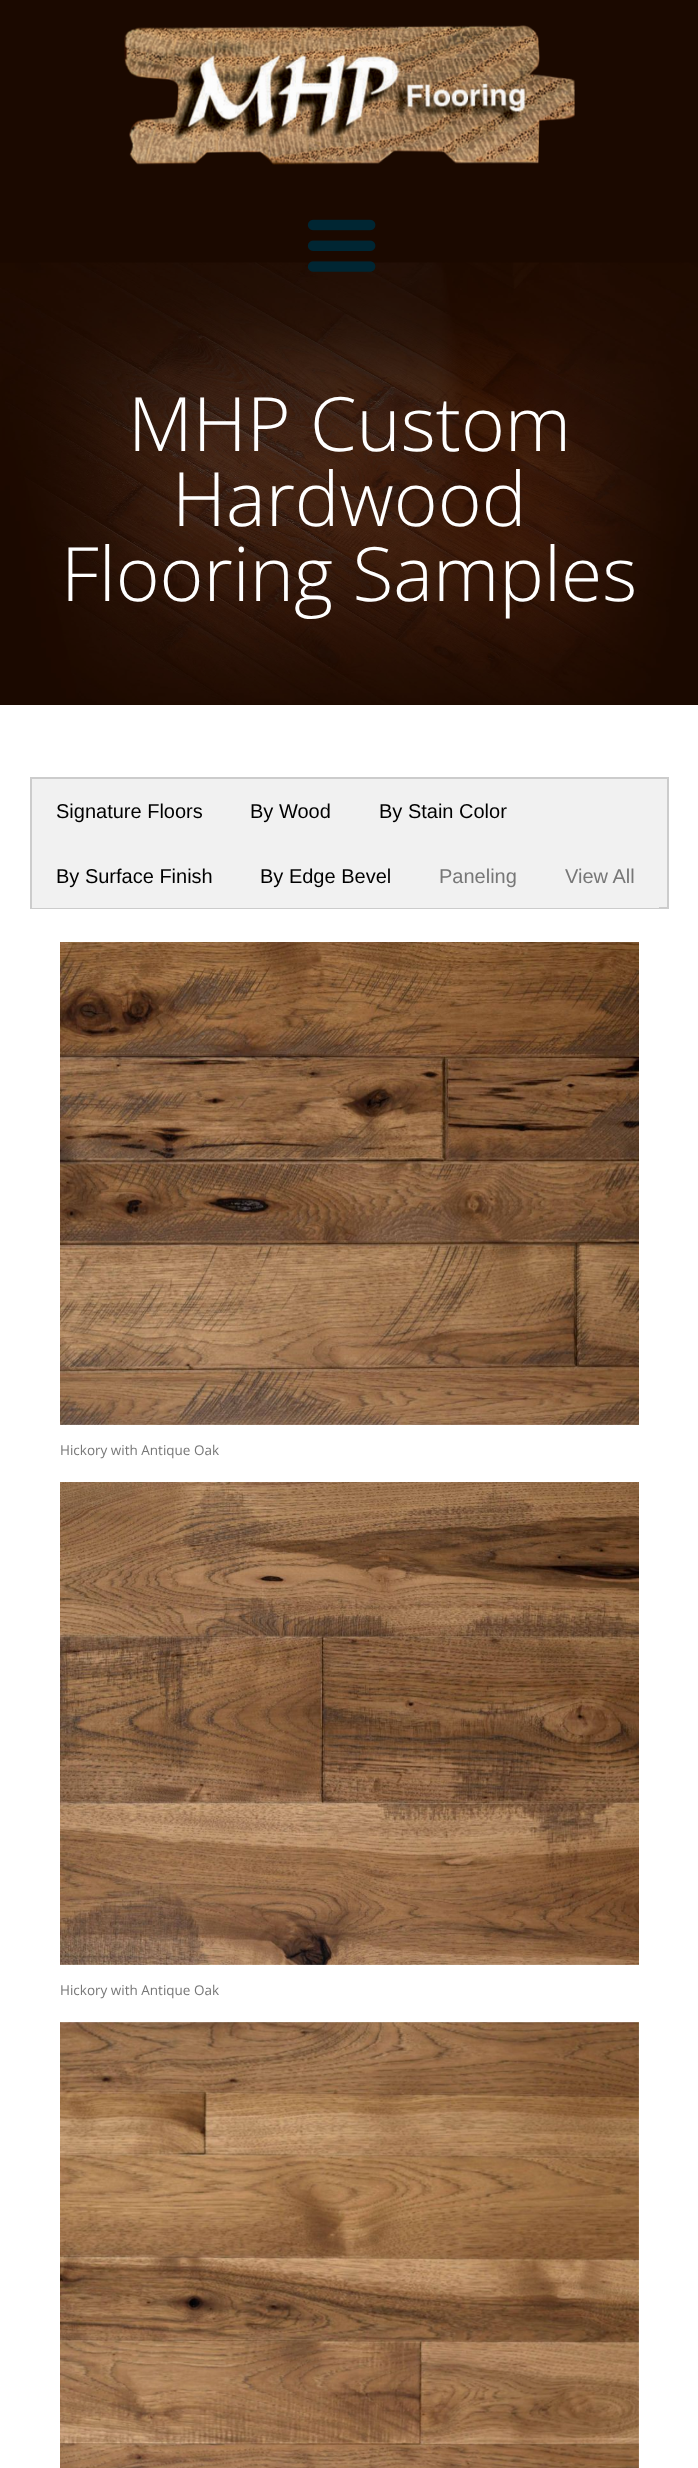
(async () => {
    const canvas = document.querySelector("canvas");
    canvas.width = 698;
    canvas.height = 2468;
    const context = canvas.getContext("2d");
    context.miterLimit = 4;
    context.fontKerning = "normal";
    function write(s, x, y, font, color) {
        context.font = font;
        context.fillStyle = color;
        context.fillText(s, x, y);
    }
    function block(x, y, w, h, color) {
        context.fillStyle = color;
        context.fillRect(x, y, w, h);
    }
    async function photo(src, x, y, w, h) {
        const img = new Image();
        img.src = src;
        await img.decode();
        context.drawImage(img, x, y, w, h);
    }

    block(0, 0, 698, 2468, "rgb(0, 0, 0)");
    await photo("media/3.png", 0, 262, 698, 443);
    block(0, 0, 698, 312, "rgba(45, 15, 0, 0.6)");
    await photo("media/1.png", 124, 25, 451, 140);
    await photo("media/2.png", 307, 219, 69, 53);
    block(0, 312, 698, 393, "rgba(45, 15, 0, 0.6)");
    write("MHP Custom", 128, 451, "300 75px Open Sans", "rgb(255, 255, 255)");
    write("Hardwood", 172, 526, "300 75px Open Sans", "rgb(255, 255, 255)");
    write("Flooring Samples", 61, 601, "300 75px Open Sans", "rgb(255, 255, 255)");
    block(0, 705, 698, 1763, "rgb(255, 255, 255)");
    context.fillStyle = "rgb(241, 241, 241)";
    context.beginPath();
    context.rect(31, 778, 637, 130);
    context.fill();
    context.strokeStyle = "rgb(204, 204, 204)";
    context.lineWidth = 2;
    context.stroke();
    write("Signature Floors", 56, 818, "20px Liberation Sans", "rgb(0, 0, 0)");
    write("By Wood", 250, 818, "20px Liberation Sans", "rgb(0, 0, 0)");
    write("By Stain Color", 379, 818, "20px Liberation Sans", "rgb(0, 0, 0)");
    block(32, 907, 627, 1, "rgb(241, 241, 241)");
    write("By Surface Finish", 56, 883, "20px Liberation Sans", "rgb(0, 0, 0)");
    write("By Edge Bevel", 260, 883, "20px Liberation Sans", "rgb(0, 0, 0)");
    write("Paneling", 439, 883, "20px Liberation Sans", "rgb(119, 119, 119)");
    write("View All", 565, 883, "20px Liberation Sans", "rgb(119, 119, 119)");
    await photo("media/4.png", 60, 942, 579, 483);
    write("Hickory with Antique Oak", 60, 1455, "13.5px Open Sans", "rgb(119, 119, 119)");
    await photo("media/5.png", 60, 1482, 579, 483);
    write("Hickory with Antique Oak", 60, 1995, "13.5px Open Sans", "rgb(119, 119, 119)");
    await photo("media/6.png", 60, 2022, 579, 446);
})();
